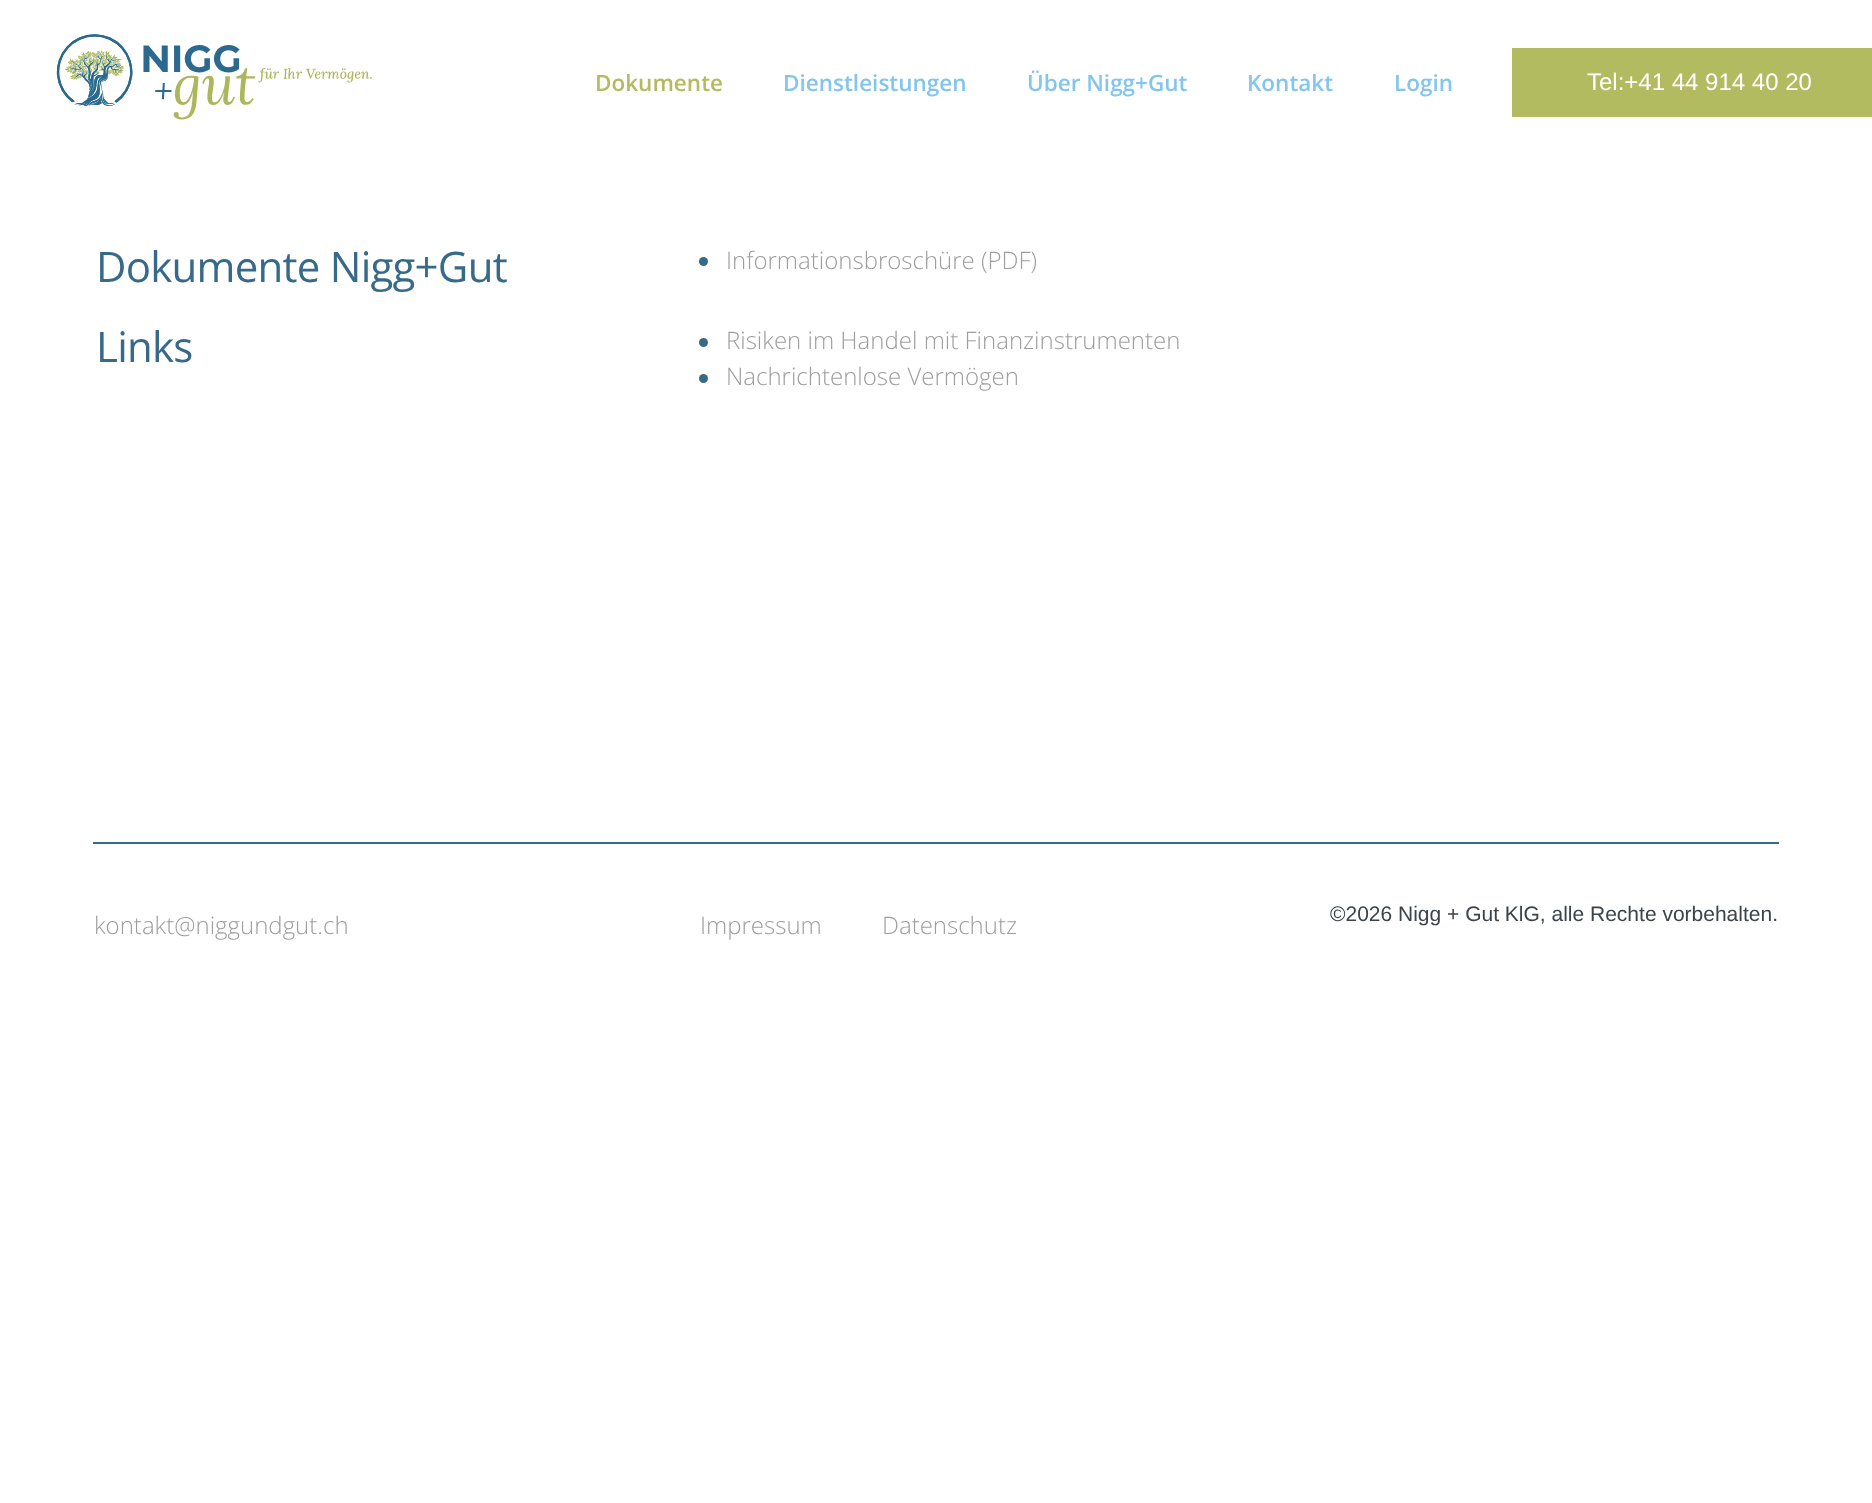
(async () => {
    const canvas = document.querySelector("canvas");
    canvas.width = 1872;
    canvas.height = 1503;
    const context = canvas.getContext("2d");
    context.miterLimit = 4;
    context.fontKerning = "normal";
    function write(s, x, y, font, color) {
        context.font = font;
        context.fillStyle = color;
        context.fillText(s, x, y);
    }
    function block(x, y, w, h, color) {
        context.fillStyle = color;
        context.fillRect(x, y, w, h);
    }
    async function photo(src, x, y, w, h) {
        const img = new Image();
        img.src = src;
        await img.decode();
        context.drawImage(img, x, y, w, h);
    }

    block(0, 0, 1872, 1503, "rgb(255, 255, 255)");
    await photo("media/1.png", 56, 34, 316, 86);
    write("Dokumente", 595, 91, "600 22.5px Open Sans", "rgb(179, 187, 96)");
    write("Dienstleistungen", 783, 91, "600 22.5px Open Sans", "rgb(131, 197, 237)");
    write("Über Nigg+Gut", 1027, 91, "600 22.5px Open Sans", "rgb(131, 197, 237)");
    write("Kontakt", 1247, 91, "600 22.5px Open Sans", "rgb(131, 197, 237)");
    write("Login", 1394, 91, "600 22.5px Open Sans", "rgb(131, 197, 237)");
    block(1512, 48, 360, 69, "rgb(179, 187, 96)");
    write("Tel:+41 44 914 40 20", 1587, 90, "24px Liberation Sans", "rgb(255, 255, 255)");
    context.letterSpacing = "-0.75px";
    write("Dokumente Nigg+Gut", 96, 282, "42px Open Sans", "rgb(55, 106, 137)");
    context.beginPath();
    context.arc(703.5, 261.5, 4.5, 0, Math.PI * 2);
    context.fill();
    context.letterSpacing = "0px";
    write("Informationsbroschüre (PDF)", 726, 269, "300 24px Open Sans", "rgb(158, 158, 158)");
    context.letterSpacing = "-0.75px";
    write("Links", 96, 362, "42px Open Sans", "rgb(55, 106, 137)");
    context.beginPath();
    context.arc(703.5, 342.5, 4.5, 0, Math.PI * 2);
    context.fill();
    context.letterSpacing = "0px";
    write("Risiken im Handel mit Finanzinstrumenten", 726, 349, "300 24px Open Sans", "rgb(158, 158, 158)");
    context.fillStyle = "rgb(55, 106, 137)";
    context.beginPath();
    context.arc(703.5, 378.5, 4.5, 0, Math.PI * 2);
    context.fill();
    write("Nachrichtenlose Vermögen", 726, 385, "300 24px Open Sans", "rgb(158, 158, 158)");
    block(93, 842, 1686, 2, "rgb(55, 106, 137)");
    write("kontakt@niggundgut.ch", 94, 934, "300 24px Open Sans", "rgb(158, 158, 158)");
    write("Impressum", 700, 934, "300 24px Open Sans", "rgb(158, 158, 158)");
    write("Datenschutz", 882, 934, "300 24px Open Sans", "rgb(158, 158, 158)");
    write("©2026 Nigg + Gut KlG, alle Rechte vorbehalten.", 1330, 921, "21px Liberation Sans", "rgb(60, 67, 74)");
})();
